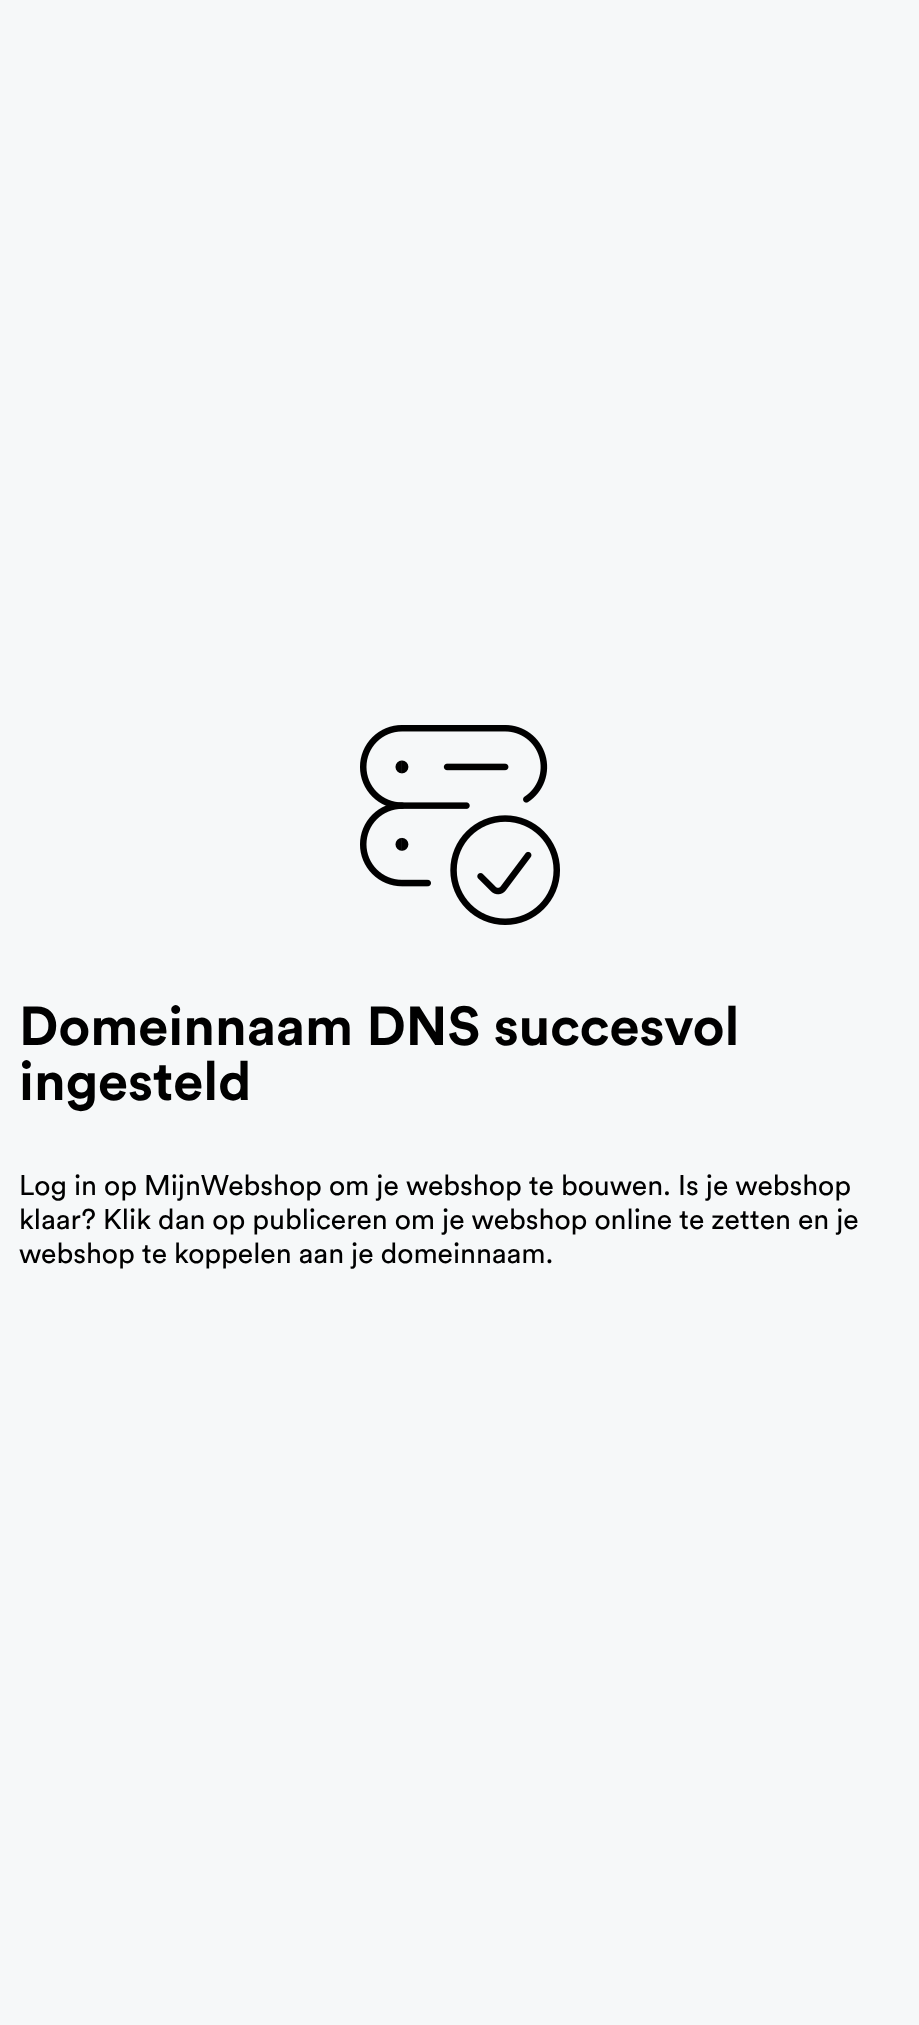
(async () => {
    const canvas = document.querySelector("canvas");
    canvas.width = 919;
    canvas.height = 2025;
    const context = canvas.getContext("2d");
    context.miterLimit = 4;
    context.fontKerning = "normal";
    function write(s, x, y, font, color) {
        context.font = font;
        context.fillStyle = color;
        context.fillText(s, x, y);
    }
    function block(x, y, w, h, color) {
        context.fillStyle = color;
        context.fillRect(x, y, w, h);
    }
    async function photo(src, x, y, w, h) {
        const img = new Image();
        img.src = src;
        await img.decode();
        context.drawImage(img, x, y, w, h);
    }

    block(0, 0, 919, 2025, "rgb(246, 248, 249)");
    await photo("media/1.png", 360, 725, 200, 200);
    write("Domeinnaam DNS succesvol", 19, 1045, "bold 54.3px Circular", "rgb(0, 0, 0)");
    write("ingesteld", 19, 1100, "bold 54.3px Circular", "rgb(0, 0, 0)");
    write("Log in op MijnWebshop om je webshop te bouwen. Is je webshop", 19, 1195, "28.25px Circular", "rgb(0, 0, 0)");
    write("klaar? Klik dan op publiceren om je webshop online te zetten en je", 19, 1229, "28.25px Circular", "rgb(0, 0, 0)");
    write("webshop te koppelen aan je domeinnaam.", 19, 1263, "28.25px Circular", "rgb(0, 0, 0)");
})();
